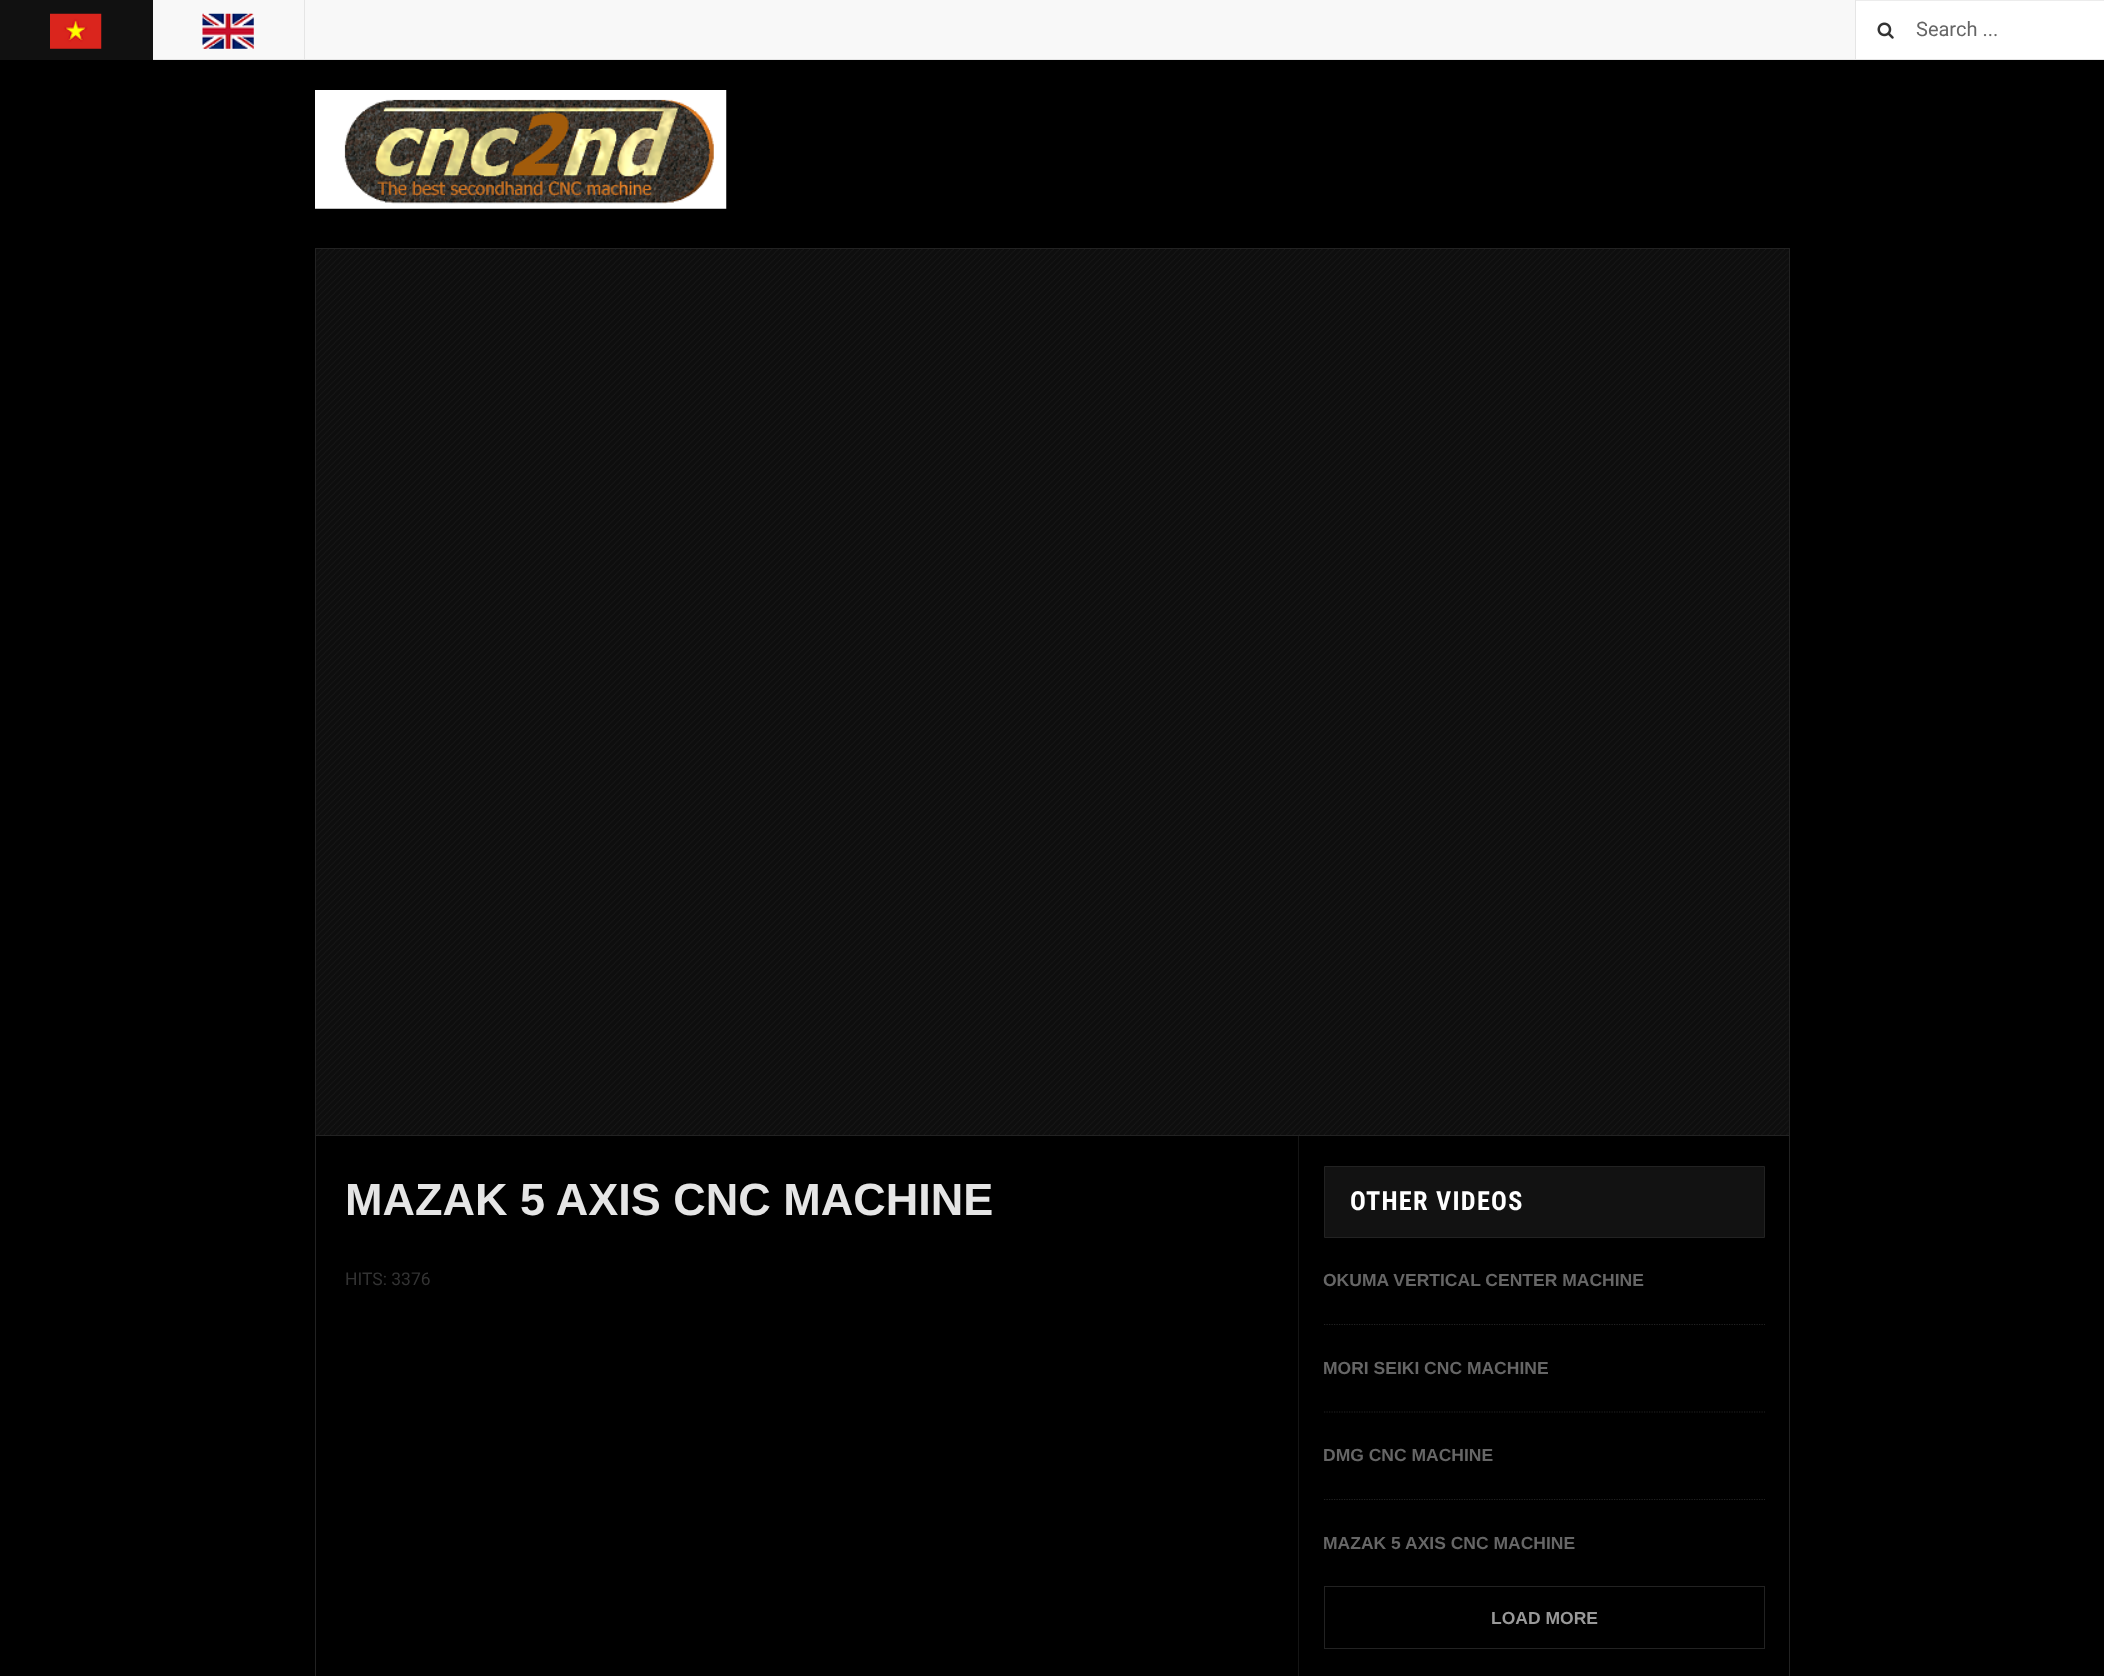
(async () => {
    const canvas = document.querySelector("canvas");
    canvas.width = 2104;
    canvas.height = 1676;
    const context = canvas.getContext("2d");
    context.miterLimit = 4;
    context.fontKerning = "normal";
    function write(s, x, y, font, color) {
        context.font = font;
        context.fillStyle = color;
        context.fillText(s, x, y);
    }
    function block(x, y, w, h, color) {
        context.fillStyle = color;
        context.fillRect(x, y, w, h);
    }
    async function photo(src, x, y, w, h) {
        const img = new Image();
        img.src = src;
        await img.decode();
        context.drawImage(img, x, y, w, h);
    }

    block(0, 0, 2104, 1676, "rgb(0, 0, 0)");
    block(153, 0, 1702, 59, "rgb(248, 248, 248)");
    block(153, 59, 1951, 1, "rgb(229, 229, 229)");
    block(0, 0, 153, 60, "rgb(17, 17, 17)");
    await photo("media/1.png", 50, 13, 52, 36);
    block(304, 0, 1, 60, "rgb(229, 229, 229)");
    await photo("media/2.png", 202, 13, 52, 36);
    block(1856, 1, 248, 58, "rgb(255, 255, 255)");
    await photo("media/3.png", 1877, 22, 17, 17);
    block(1856, 0, 248, 1, "rgb(236, 236, 236)");
    block(1855, 0, 1, 59, "rgb(229, 229, 229)");
    write("Search ...", 1916, 36, "20px Roboto", "rgb(102, 102, 102)");
    await photo("media/4.png", 315, 90, 412, 119);
    context.strokeStyle = "rgb(34, 34, 34)";
    context.strokeRect(315.5, 248.5, 1474, 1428);
    block(1298, 1136, 1, 540, "rgb(21, 21, 21)");
    block(316, 249, 1473, 886, "rgb(14, 14, 14)");
    await photo("media/5.png", 316, 249, 1473, 886);
    block(316, 1135, 1473, 1, "rgb(34, 34, 34)");
    write("MAZAK 5 AXIS CNC MACHINE", 345, 1215, "bold 45px Liberation Sans", "rgb(229, 229, 229)");
    write("HITS: 3376", 345, 1285, "17.5px Roboto", "rgb(51, 51, 51)");
    context.fillStyle = "rgb(18, 18, 18)";
    context.beginPath();
    context.rect(1324.5, 1166.5, 440, 71);
    context.fill();
    context.stroke();
    context.letterSpacing = "1.25px";
    write("OTHER VIDEOS", 1350, 1210, "bold 26.25px Roboto Condensed", "rgb(255, 255, 255)");
    context.beginPath();
    context.moveTo(1324, 1324.5);
    context.lineTo(1765, 1324.5);
    context.lineWidth = 1.2;
    context.setLineDash([1.25, 1.25]);
    context.stroke();
    context.letterSpacing = "0px";
    write("OKUMA VERTICAL CENTER MACHINE", 1323, 1286, "bold 17.5px Liberation Sans", "rgb(102, 102, 102)");
    context.beginPath();
    context.moveTo(1324, 1412);
    context.lineTo(1765, 1412);
    context.stroke();
    write("MORI SEIKI CNC MACHINE", 1323, 1374, "bold 17.5px Liberation Sans", "rgb(102, 102, 102)");
    context.beginPath();
    context.moveTo(1324, 1499.5);
    context.lineTo(1765, 1499.5);
    context.stroke();
    write("DMG CNC MACHINE", 1323, 1461, "bold 17.5px Liberation Sans", "rgb(102, 102, 102)");
    write("MAZAK 5 AXIS CNC MACHINE", 1323, 1549, "bold 17.5px Liberation Sans", "rgb(102, 102, 102)");
    context.lineWidth = 1;
    context.setLineDash([]);
    context.strokeRect(1324.5, 1586.5, 440, 62);
    write("LOAD MORE", 1491, 1624, "bold 17.5px Liberation Sans", "rgb(153, 153, 153)");
})();
